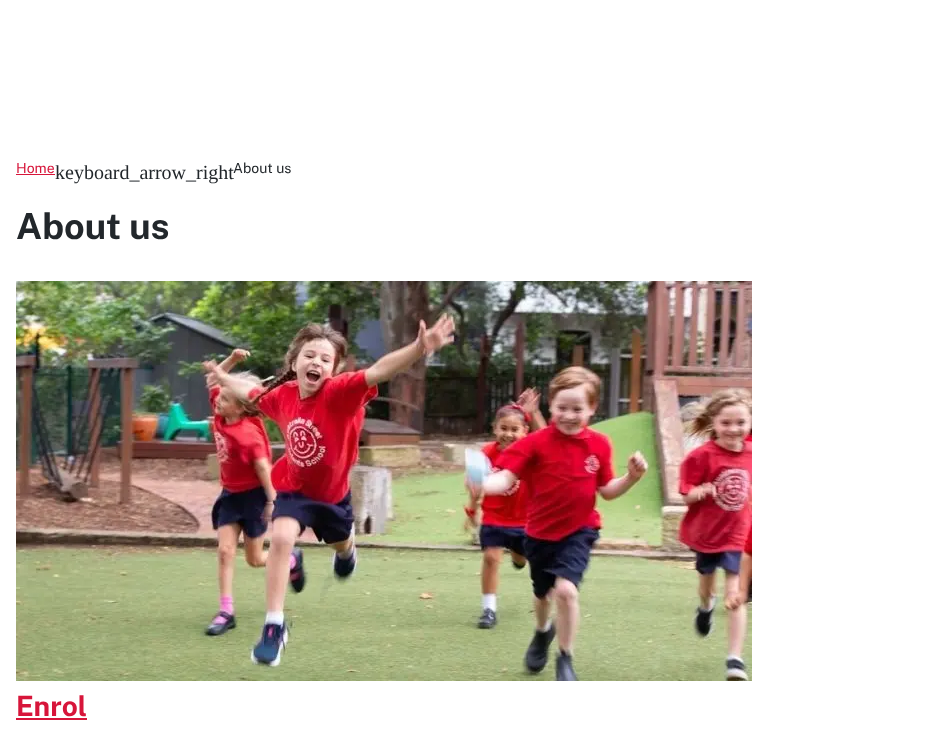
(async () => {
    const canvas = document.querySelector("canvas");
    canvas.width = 929;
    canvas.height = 747;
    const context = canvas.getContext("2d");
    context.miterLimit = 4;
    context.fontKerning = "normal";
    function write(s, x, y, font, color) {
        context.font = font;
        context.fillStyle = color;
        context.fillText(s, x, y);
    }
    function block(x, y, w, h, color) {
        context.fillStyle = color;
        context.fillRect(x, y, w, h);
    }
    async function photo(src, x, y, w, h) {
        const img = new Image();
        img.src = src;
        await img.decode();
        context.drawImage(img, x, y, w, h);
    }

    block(0, 0, 929, 747, "rgb(255, 255, 255)");
    write("Home", 16, 173, "14px Public Sans", "rgb(215, 21, 58)");
    block(16, 174, 39, 1, "rgb(215, 21, 58)");
    write("keyboard_arrow_right", 55, 179, "20px Liberation Serif", "rgb(34, 39, 43)");
    write("About us", 233, 173, "14px Public Sans", "rgb(34, 39, 43)");
    write("About us", 16, 239, "bold 36px Public Sans", "rgb(34, 39, 43)");
    await photo("media/1.png", 16, 281, 736, 400);
    write("Enrol", 16, 716, "bold 28px Public Sans", "rgb(215, 21, 58)");
    block(16, 718, 71, 2, "rgb(215, 21, 58)");
})();
